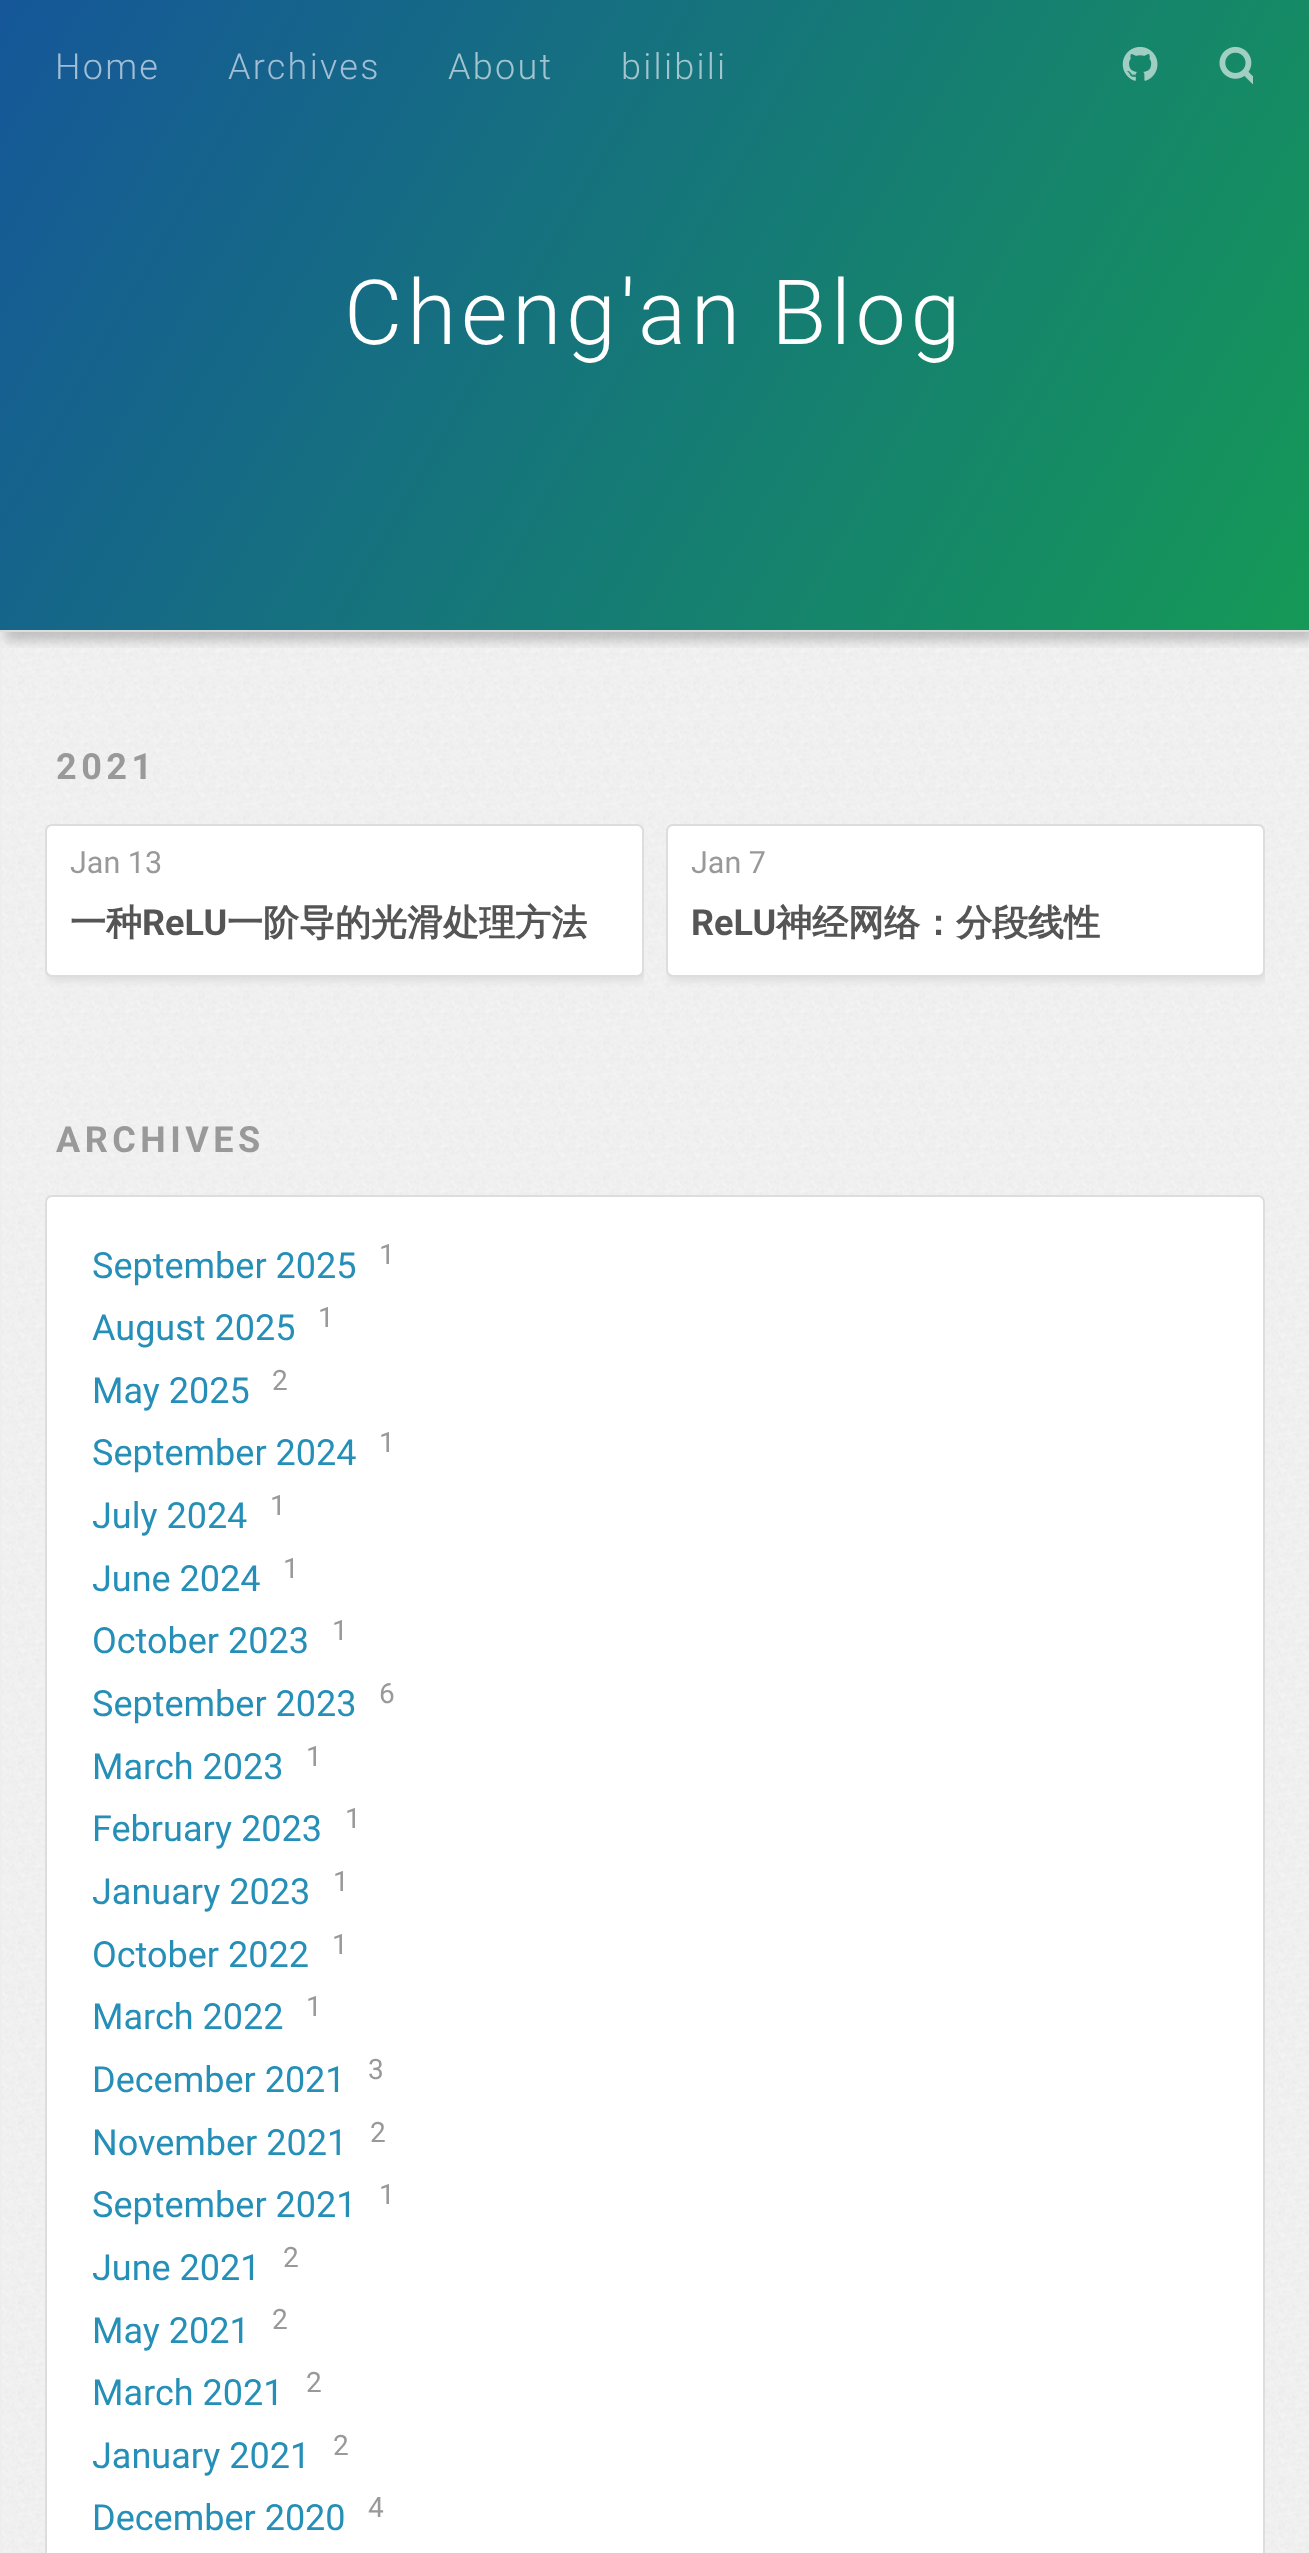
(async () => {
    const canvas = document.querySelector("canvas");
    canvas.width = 1309;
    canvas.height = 2553;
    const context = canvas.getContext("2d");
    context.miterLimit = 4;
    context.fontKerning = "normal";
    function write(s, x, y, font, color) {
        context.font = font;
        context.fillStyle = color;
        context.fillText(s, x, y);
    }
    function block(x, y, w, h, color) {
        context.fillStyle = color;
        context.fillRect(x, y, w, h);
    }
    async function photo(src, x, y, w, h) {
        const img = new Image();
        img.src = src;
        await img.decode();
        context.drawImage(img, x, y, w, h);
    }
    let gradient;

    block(0, 0, 1309, 2553, "rgb(238, 238, 238)");
    await photo("media/1.png", 2, 632, 1307, 1920);
    gradient = context.createLinearGradient(27, -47, 1282, 677);
    gradient.addColorStop(0, "rgb(21, 87, 153)");
    gradient.addColorStop(1, "rgb(21, 153, 87)");
    context.fillStyle = gradient;
    context.fillRect(0, 0, 1309, 630);
    context.save();
    context.beginPath();
    context.rect(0, 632, 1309, 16);
    context.clip();
    context.fillStyle = "rgba(3, 3, 3, 0.2)";
    context.filter = "blur(5.5px)";
    context.beginPath();
    context.rect(5, 9, 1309, 632);
    context.fill();
    context.filter = "none";
    context.restore();
    block(0, 630, 1309, 2, "rgb(221, 221, 221)");
    context.letterSpacing = "2.25px";
    write("Home", 55, 79, "300 36px Roboto", "rgb(161, 190, 212)");
    write("Archives", 228, 79, "300 36px Roboto", "rgb(161, 190, 212)");
    write("About", 448, 79, "300 36px Roboto", "rgb(161, 196, 206)");
    write("bilibili", 621, 79, "300 36px Roboto", "rgb(161, 196, 206)");
    await photo("media/2.png", 1122, 46, 36, 35);
    await photo("media/3.png", 1219, 46, 34, 39);
    context.letterSpacing = "4.5px";
    write("Cheng'an Blog", 344, 344, "300 90px Roboto", "rgb(255, 255, 255)");
    write("2021", 56, 779, "bold 36px Roboto", "rgb(153, 153, 153)");
    context.save();
    context.beginPath();
    context.rect(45, 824, 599, 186);
    context.clip();
    context.fillStyle = "rgb(221, 221, 221)";
    context.filter = "blur(3.5px)";
    context.beginPath();
    context.roundRect(47, 828, 599, 153, 7);
    context.fill();
    context.filter = "none";
    context.restore();
    context.fillStyle = "rgb(255, 255, 255)";
    context.beginPath();
    context.roundRect(46, 825, 597, 151, 6);
    context.fill();
    context.strokeStyle = "rgb(221, 221, 221)";
    context.lineWidth = 2;
    context.stroke();
    context.letterSpacing = "0px";
    write("Jan 13", 70, 873, "30.5px Roboto", "rgb(153, 153, 153)");
    write("一种", 70, 935, "bold 36px WenQuanYi Zen Hei", "rgb(85, 85, 85)");
    write("ReLU", 142, 935, "bold 36px Roboto", "rgb(85, 85, 85)");
    write("一阶导的光滑处理方法", 227, 935, "bold 36px WenQuanYi Zen Hei", "rgb(85, 85, 85)");
    context.save();
    context.beginPath();
    context.rect(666, 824, 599, 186);
    context.clip();
    context.fillStyle = "rgb(221, 221, 221)";
    context.filter = "blur(3.5px)";
    context.beginPath();
    context.roundRect(668, 828, 599, 153, 7);
    context.fill();
    context.filter = "none";
    context.restore();
    context.fillStyle = "rgb(255, 255, 255)";
    context.beginPath();
    context.roundRect(667, 825, 597, 151, 6);
    context.fill();
    context.stroke();
    write("Jan 7", 691, 873, "30.5px Roboto", "rgb(153, 153, 153)");
    write("ReLU", 691, 935, "bold 36px Roboto", "rgb(85, 85, 85)");
    write("神经网络：分段线性", 776, 935, "bold 36px WenQuanYi Zen Hei", "rgb(85, 85, 85)");
    context.letterSpacing = "4.5px";
    write("ARCHIVES", 56, 1152, "bold 36px Roboto", "rgb(153, 153, 153)");
    context.fillStyle = "rgb(255, 255, 255)";
    context.beginPath();
    context.roundRect(46, 1196, 1218, 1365, 6);
    context.fill();
    context.stroke();
    context.letterSpacing = "0px";
    write("September 2025", 92, 1278, "36px Roboto", "rgb(37, 143, 184)");
    write("1", 379, 1264, "28px Roboto", "rgb(153, 153, 153)");
    write("August 2025", 92, 1340, "36px Roboto", "rgb(37, 143, 184)");
    write("1", 318, 1327, "28px Roboto", "rgb(153, 153, 153)");
    write("May 2025", 92, 1403, "36px Roboto", "rgb(37, 143, 184)");
    write("2", 272, 1390, "28px Roboto", "rgb(153, 153, 153)");
    write("September 2024", 92, 1465, "36px Roboto", "rgb(37, 143, 184)");
    write("1", 379, 1452, "28px Roboto", "rgb(153, 153, 153)");
    write("July 2024", 92, 1528, "36px Roboto", "rgb(37, 143, 184)");
    write("1", 270, 1515, "28px Roboto", "rgb(153, 153, 153)");
    write("June 2024", 92, 1591, "36px Roboto", "rgb(37, 143, 184)");
    write("1", 283, 1578, "28px Roboto", "rgb(153, 153, 153)");
    write("October 2023", 92, 1653, "36px Roboto", "rgb(37, 143, 184)");
    write("1", 332, 1640, "28px Roboto", "rgb(153, 153, 153)");
    write("September 2023", 92, 1716, "36px Roboto", "rgb(37, 143, 184)");
    write("6", 379, 1703, "28px Roboto", "rgb(153, 153, 153)");
    write("March 2023", 92, 1779, "36px Roboto", "rgb(37, 143, 184)");
    write("1", 306, 1766, "28px Roboto", "rgb(153, 153, 153)");
    write("February 2023", 92, 1841, "36px Roboto", "rgb(37, 143, 184)");
    write("1", 345, 1828, "28px Roboto", "rgb(153, 153, 153)");
    write("January 2023", 92, 1904, "36px Roboto", "rgb(37, 143, 184)");
    write("1", 333, 1891, "28px Roboto", "rgb(153, 153, 153)");
    write("October 2022", 92, 1967, "36px Roboto", "rgb(37, 143, 184)");
    write("1", 332, 1954, "28px Roboto", "rgb(153, 153, 153)");
    write("March 2022", 92, 2029, "36px Roboto", "rgb(37, 143, 184)");
    write("1", 306, 2016, "28px Roboto", "rgb(153, 153, 153)");
    write("December 2021", 92, 2092, "36px Roboto", "rgb(37, 143, 184)");
    write("3", 368, 2079, "28px Roboto", "rgb(153, 153, 153)");
    write("November 2021", 92, 2155, "36px Roboto", "rgb(37, 143, 184)");
    write("2", 370, 2142, "28px Roboto", "rgb(153, 153, 153)");
    write("September 2021", 92, 2217, "36px Roboto", "rgb(37, 143, 184)");
    write("1", 379, 2204, "28px Roboto", "rgb(153, 153, 153)");
    write("June 2021", 92, 2280, "36px Roboto", "rgb(37, 143, 184)");
    write("2", 283, 2267, "28px Roboto", "rgb(153, 153, 153)");
    write("May 2021", 92, 2343, "36px Roboto", "rgb(37, 143, 184)");
    write("2", 272, 2329, "28px Roboto", "rgb(153, 153, 153)");
    write("March 2021", 92, 2405, "36px Roboto", "rgb(37, 143, 184)");
    write("2", 306, 2392, "28px Roboto", "rgb(153, 153, 153)");
    write("January 2021", 92, 2468, "36px Roboto", "rgb(37, 143, 184)");
    write("2", 333, 2455, "28px Roboto", "rgb(153, 153, 153)");
    write("December 2020", 92, 2530, "36px Roboto", "rgb(37, 143, 184)");
    write("4", 368, 2517, "28px Roboto", "rgb(153, 153, 153)");
})();
